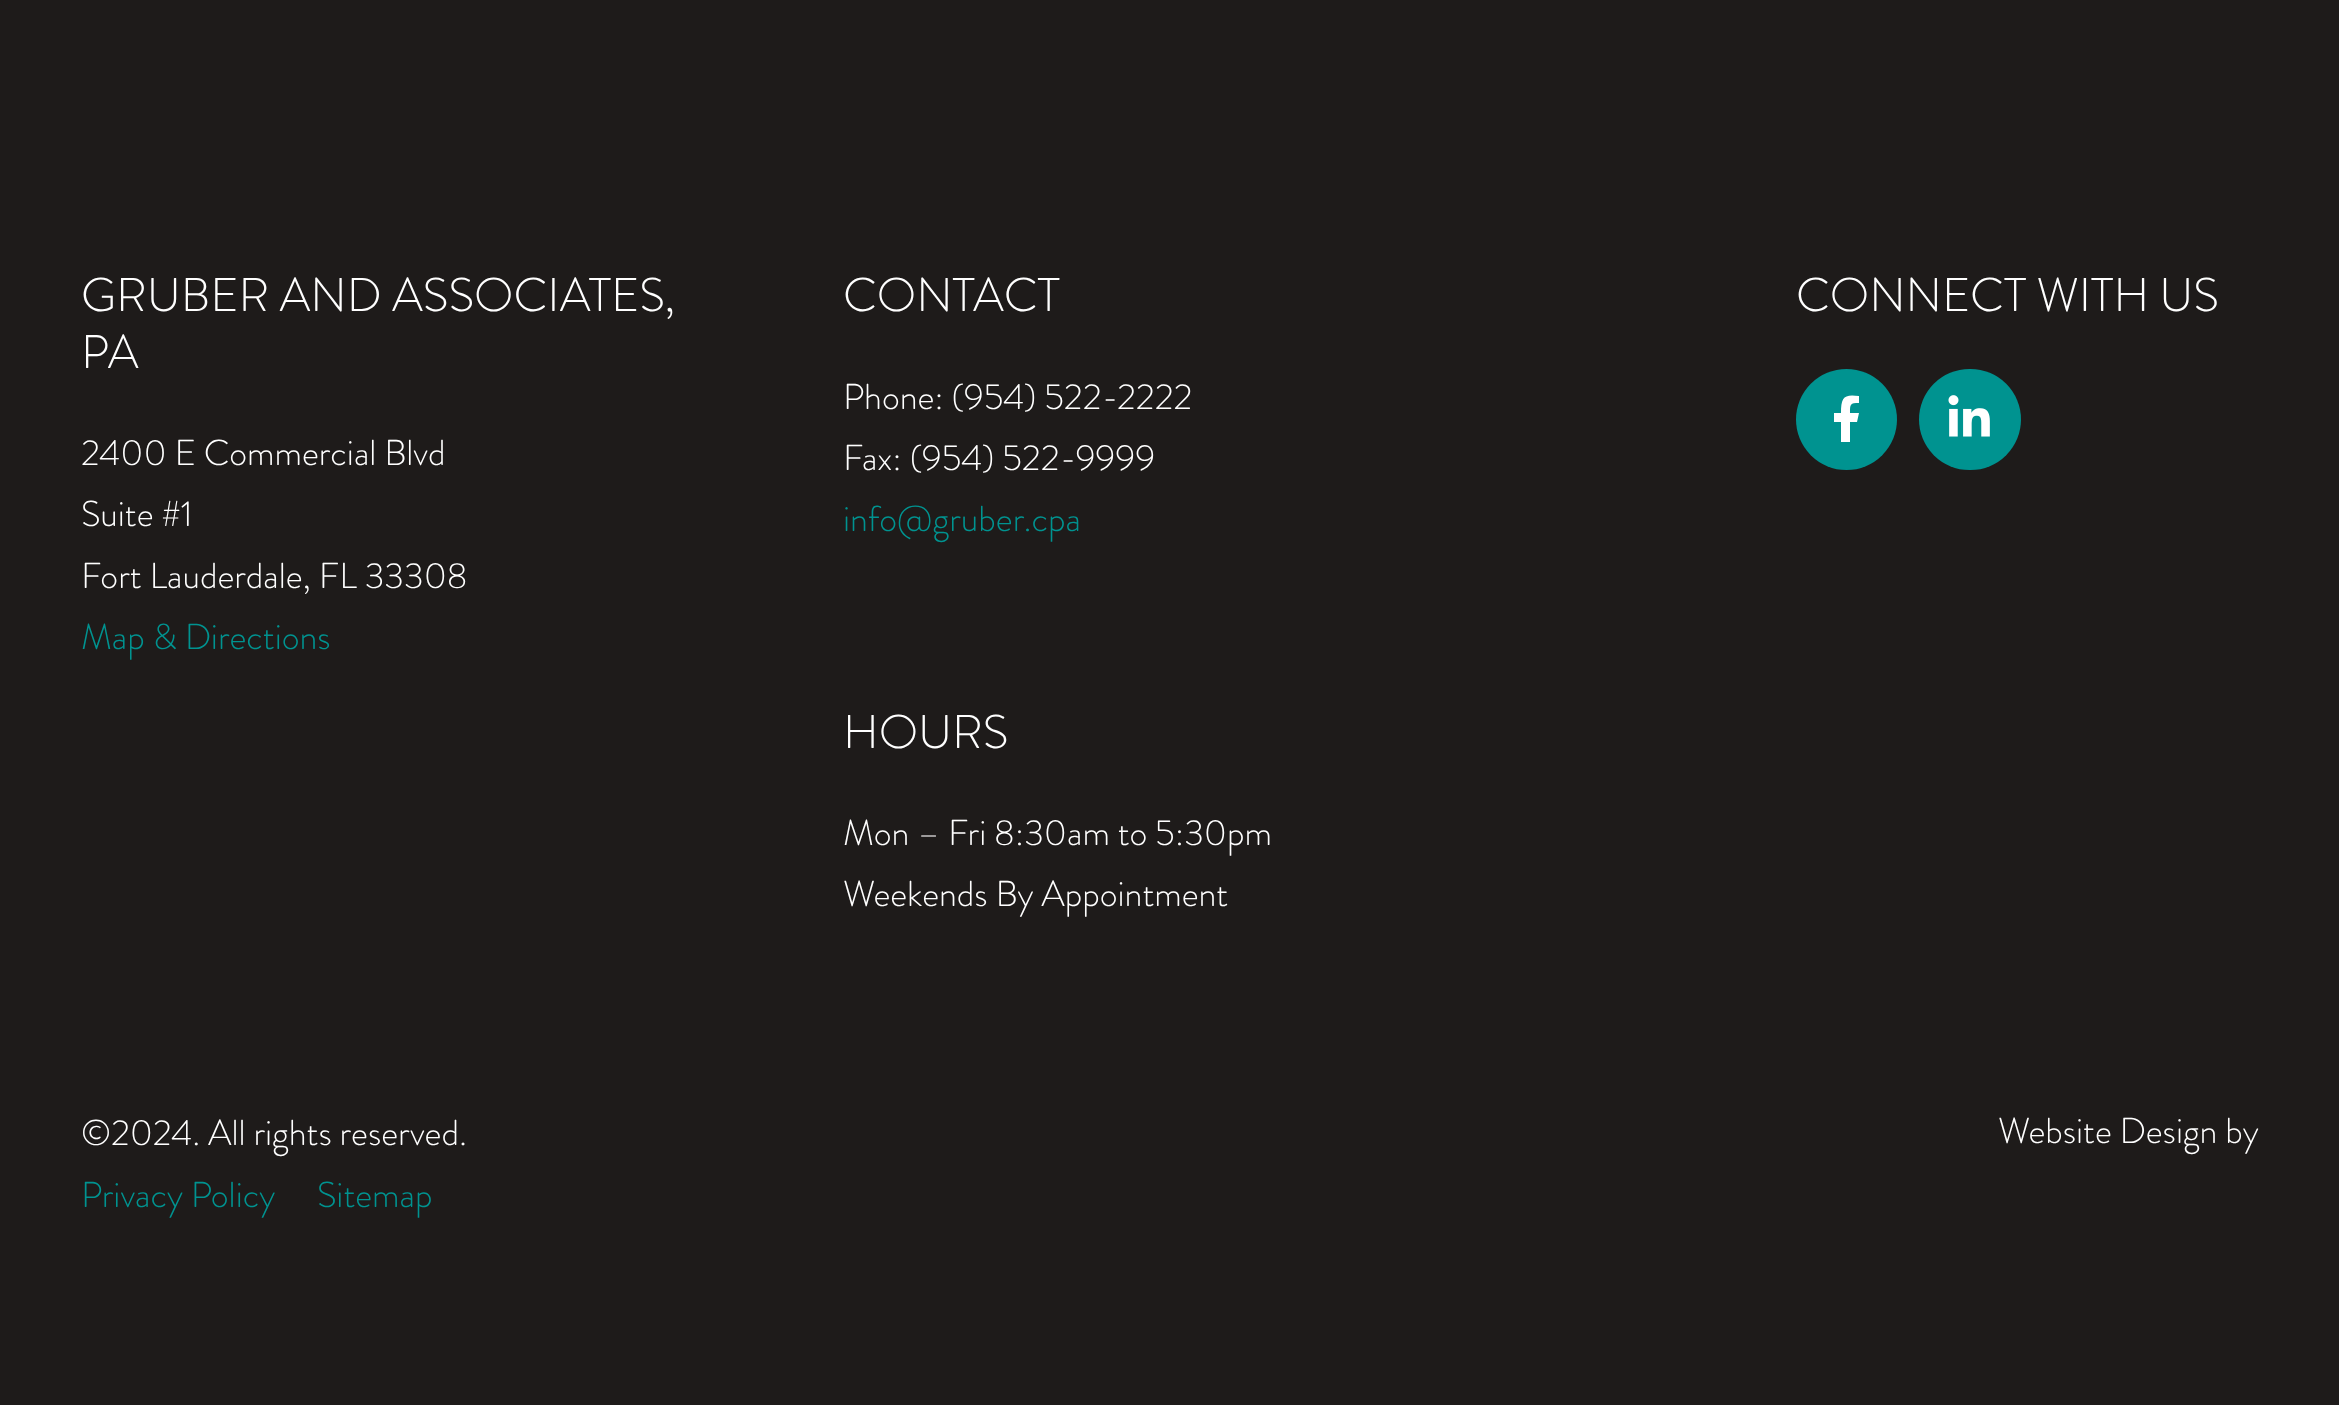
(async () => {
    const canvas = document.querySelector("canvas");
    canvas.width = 2339;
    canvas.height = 1405;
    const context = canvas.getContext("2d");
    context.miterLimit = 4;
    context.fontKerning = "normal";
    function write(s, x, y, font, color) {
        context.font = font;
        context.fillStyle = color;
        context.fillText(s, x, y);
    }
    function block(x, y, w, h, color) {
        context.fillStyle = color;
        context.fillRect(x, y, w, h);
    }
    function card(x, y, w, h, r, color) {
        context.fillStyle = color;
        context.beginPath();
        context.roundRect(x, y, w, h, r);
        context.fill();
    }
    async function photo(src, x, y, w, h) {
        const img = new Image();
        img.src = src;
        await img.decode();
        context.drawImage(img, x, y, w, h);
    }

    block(0, 0, 2339, 1405, "rgb(30, 27, 26)");
    write("GRUBER AND ASSOCIATES,", 81, 311, "300 47.25px Brandon Grotesque", "rgb(255, 255, 255)");
    write("PA", 81, 368, "300 47.25px Brandon Grotesque", "rgb(255, 255, 255)");
    write("2400 E Commercial Blvd", 81, 465, "300 36px Brandon Grotesque", "rgb(255, 255, 255)");
    write("Suite #1", 81, 526, "300 36px Brandon Grotesque", "rgb(255, 255, 255)");
    write("Fort Lauderdale, FL 33308", 81, 588, "300 36px Brandon Grotesque", "rgb(255, 255, 255)");
    write("Map & Directions", 81, 649, "300 36px Brandon Grotesque", "rgb(0, 147, 144)");
    write("CONTACT", 843, 311, "300 47.25px Brandon Grotesque", "rgb(255, 255, 255)");
    write("Phone: (954) 522-2222", 843, 409, "300 36px Brandon Grotesque", "rgb(255, 255, 255)");
    write("Fax: (954) 522-9999", 843, 470, "300 36px Brandon Grotesque", "rgb(255, 255, 255)");
    write("info@gruber.cpa", 843, 531, "300 36px Brandon Grotesque", "rgb(0, 147, 144)");
    write("HOURS", 843, 748, "300 47.25px Brandon Grotesque", "rgb(255, 255, 255)");
    write("Mon – Fri 8:30am to 5:30pm", 843, 845, "300 36px Brandon Grotesque", "rgb(255, 255, 255)");
    write("Weekends By Appointment", 843, 906, "300 36px Brandon Grotesque", "rgb(255, 255, 255)");
    write("CONNECT WITH US", 1796, 311, "300 47.25px Brandon Grotesque", "rgb(255, 255, 255)");
    context.fillStyle = "rgb(0, 147, 144)";
    context.beginPath();
    context.arc(1846.5, 419.5, 50.5, 0, Math.PI * 2);
    context.fill();
    context.fillStyle = "rgb(255, 255, 255)";
    context.beginPath();
    context.moveTo(1857, 422);
    context.lineTo(1850, 422);
    context.lineTo(1850, 442);
    context.lineTo(1841, 442);
    context.lineTo(1841, 422);
    context.lineTo(1834, 422);
    context.lineTo(1834, 413);
    context.lineTo(1841, 413);
    context.bezierCurveTo(1841, 397, 1844, 394, 1859, 396);
    context.lineTo(1859, 403);
    context.bezierCurveTo(1850, 403, 1850, 404, 1850, 413);
    context.lineTo(1859, 413);
    context.closePath();
    context.fill();
    card(1919, 369, 102, 101, 50.5, "rgb(0, 147, 144)");
    await photo("media/1.png", 1948, 395, 42, 42);
    write("©2024. All rights reserved.", 81, 1145, "300 36px Brandon Grotesque", "rgb(255, 255, 255)");
    write("Privacy Policy", 81, 1207, "300 36px Brandon Grotesque", "rgb(0, 147, 144)");
    write("Sitemap", 317, 1207, "300 36px Brandon Grotesque", "rgb(0, 147, 144)");
    write("Website Design by", 1998, 1143, "300 36px Brandon Grotesque", "rgb(255, 255, 255)");
})();
